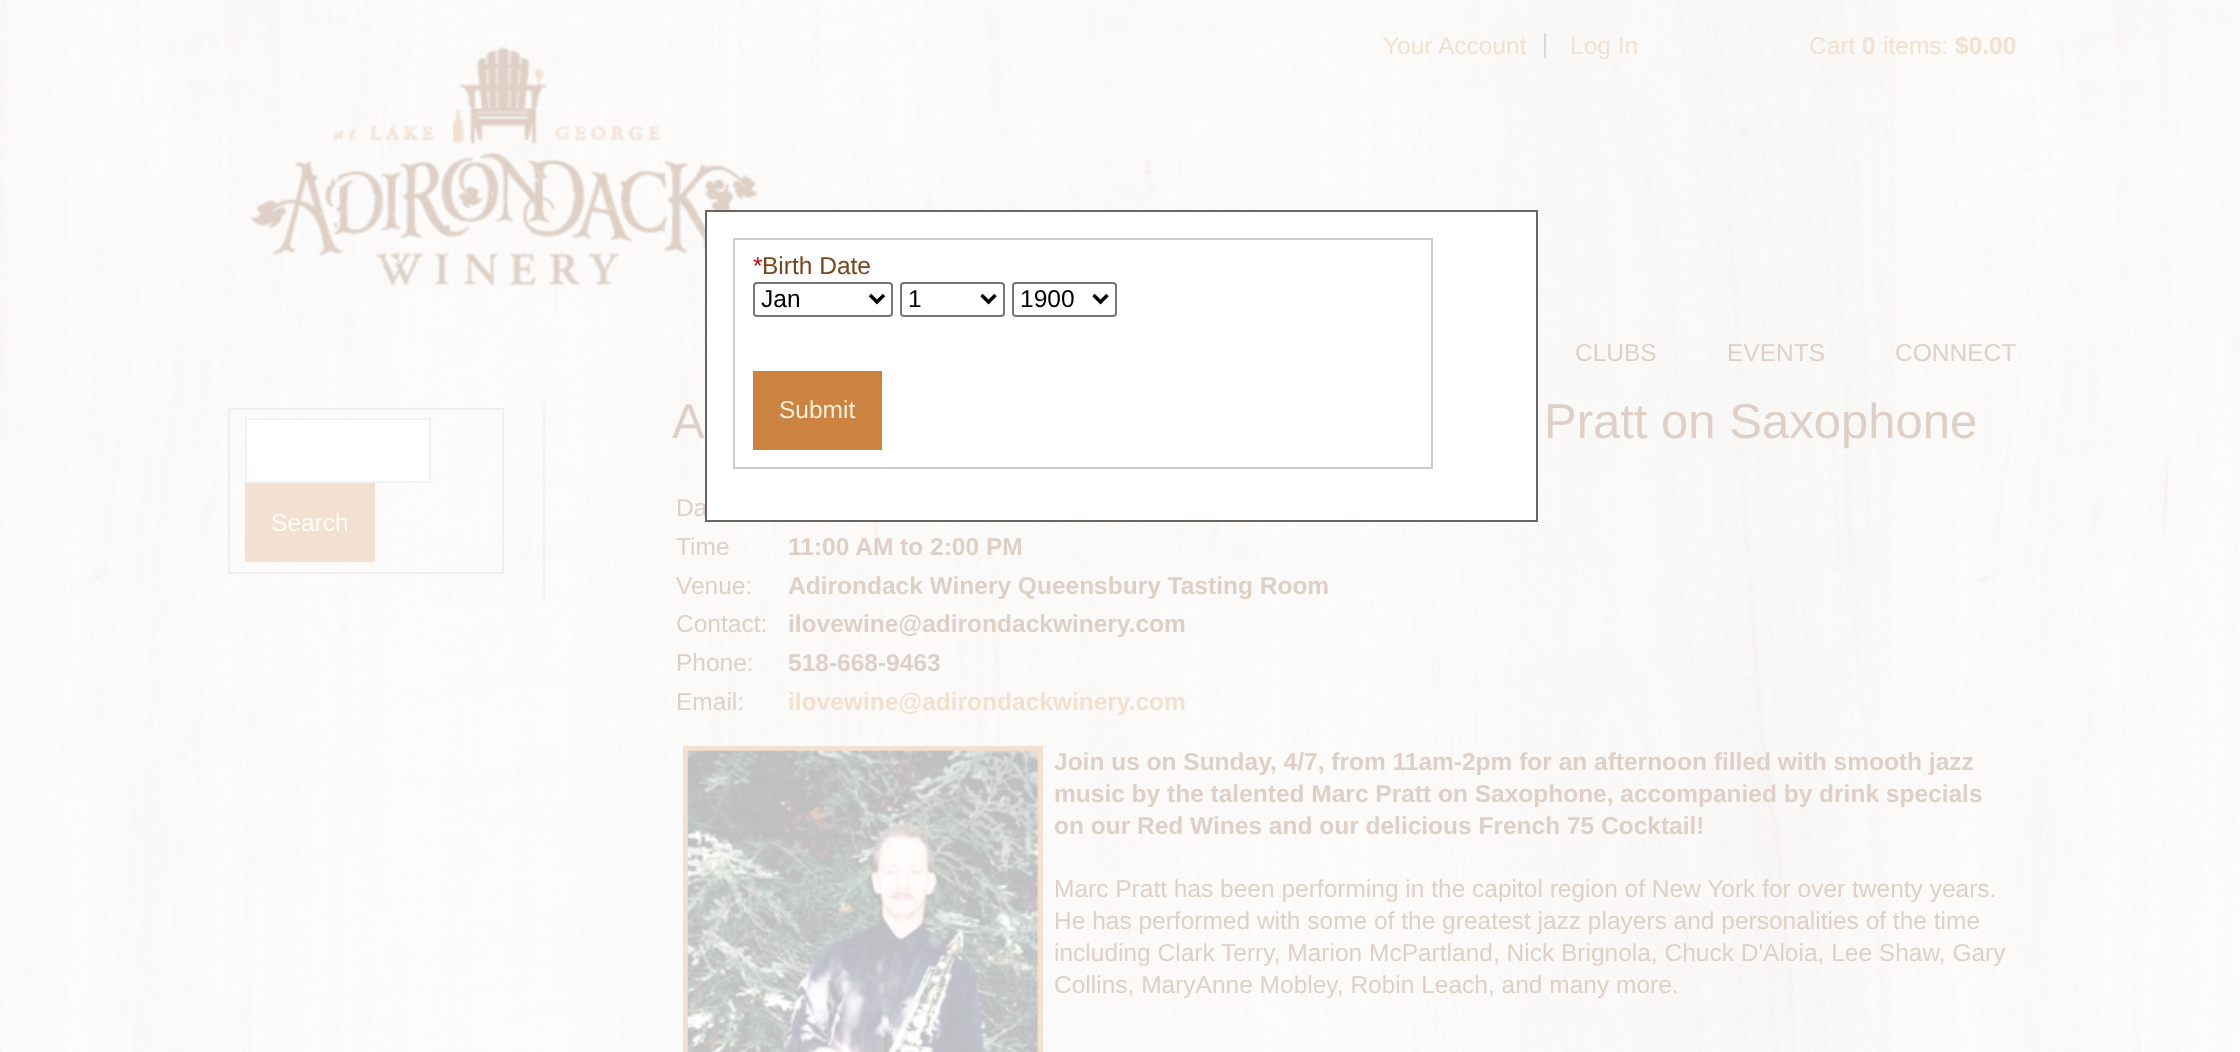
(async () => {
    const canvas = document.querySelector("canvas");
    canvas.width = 2240;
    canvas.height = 1052;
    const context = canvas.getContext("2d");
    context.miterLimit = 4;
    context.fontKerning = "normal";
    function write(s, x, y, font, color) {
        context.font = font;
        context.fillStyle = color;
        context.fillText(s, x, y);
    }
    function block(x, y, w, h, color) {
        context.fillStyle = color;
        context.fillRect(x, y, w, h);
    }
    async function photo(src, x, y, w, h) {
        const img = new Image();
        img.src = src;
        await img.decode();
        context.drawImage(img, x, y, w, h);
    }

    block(0, 0, 2240, 1052, "rgb(255, 255, 255)");
    await photo("media/1.png", 0, 0, 2240, 1052);
    await photo("media/2.png", 250, 46, 509, 240);
    write("Da", 676, 516, "24.5px Liberation Sans", "rgb(222, 208, 198)");
    context.fillStyle = "rgb(255, 255, 255)";
    context.beginPath();
    context.rect(706, 211, 831, 310);
    context.fill();
    context.strokeStyle = "rgb(102, 102, 102)";
    context.lineWidth = 2;
    context.stroke();
    context.strokeStyle = "rgb(204, 204, 204)";
    context.strokeRect(734, 239, 698, 229);
    write("*", 753, 274, "24.5px Liberation Sans", "rgb(204, 0, 0)");
    write("Birth Date", 762, 274, "24.5px Liberation Sans", "rgb(122, 68, 28)");
    context.beginPath();
    context.roundRect(754, 283, 138, 33, 3);
    context.strokeStyle = "rgb(118, 118, 118)";
    context.stroke();
    context.beginPath();
    context.moveTo(870, 295);
    context.lineTo(877, 302);
    context.lineTo(884, 295);
    context.strokeStyle = "rgb(0, 0, 0)";
    context.lineWidth = 3.5;
    context.stroke();
    write("Jan", 761, 307, "24.5px Liberation Sans", "rgb(0, 0, 0)");
    context.beginPath();
    context.roundRect(901, 283, 103, 33, 3);
    context.strokeStyle = "rgb(118, 118, 118)";
    context.lineWidth = 2;
    context.stroke();
    context.beginPath();
    context.moveTo(981.5, 295);
    context.lineTo(988.5, 302);
    context.lineTo(995.5, 295);
    context.strokeStyle = "rgb(0, 0, 0)";
    context.lineWidth = 3.5;
    context.stroke();
    write("1", 908, 307, "24.5px Liberation Sans", "rgb(0, 0, 0)");
    context.beginPath();
    context.roundRect(1013, 283, 103, 33, 3);
    context.strokeStyle = "rgb(118, 118, 118)";
    context.lineWidth = 2;
    context.stroke();
    context.beginPath();
    context.moveTo(1093.5, 295);
    context.lineTo(1100.5, 302);
    context.lineTo(1107.5, 295);
    context.strokeStyle = "rgb(0, 0, 0)";
    context.lineWidth = 3.5;
    context.stroke();
    write("1900", 1020, 307, "24.5px Liberation Sans", "rgb(0, 0, 0)");
    block(753, 371, 129, 79, "rgb(204, 131, 65)");
    write("Submit", 779, 418, "24.5px Liberation Sans", "rgb(250, 241, 216)");
    block(1544, 33, 2, 25, "rgb(217, 217, 217)");
    write("Your Account", 1383, 54, "24.5px Liberation Sans", "rgb(242, 224, 208)");
    write("Log In", 1570, 54, "24.5px Liberation Sans", "rgb(242, 224, 208)");
    write("Cart", 1809, 54, "24.5px Liberation Sans", "rgb(242, 224, 208)");
    write("0", 1862, 54, "bold 24.5px Liberation Sans", "rgb(242, 224, 208)");
    write("items:", 1883, 54, "24.5px Liberation Sans", "rgb(242, 224, 208)");
    write("$0.00", 1955, 54, "bold 24.5px Liberation Sans", "rgb(242, 224, 208)");
    write("CLUBS", 1575, 361, "24.5px Liberation Sans", "rgb(222, 208, 198)");
    write("EVENTS", 1727, 361, "24.5px Liberation Sans", "rgb(222, 208, 198)");
    write("CONNECT", 1895, 361, "24.5px Liberation Sans", "rgb(222, 208, 198)");
    block(543, 403, 2, 196, "rgb(242, 242, 242)");
    context.strokeStyle = "rgb(239, 239, 239)";
    context.lineWidth = 2;
    context.strokeRect(229, 409, 274, 164);
    context.fillStyle = "rgb(255, 255, 255)";
    context.beginPath();
    context.rect(246, 419, 184, 63);
    context.fill();
    context.strokeStyle = "rgb(242, 242, 242)";
    context.stroke();
    block(245, 483, 130, 79, "rgb(242, 224, 208)");
    write("Search", 271, 531, "24.5px Liberation Sans", "rgb(254, 252, 245)");
    write("A", 672, 438, "49px Liberation Sans", "rgb(222, 208, 198)");
    write("Pratt on Saxophone", 1544, 438, "49px Liberation Sans", "rgb(222, 208, 198)");
    write("Time", 676, 555, "24.5px Liberation Sans", "rgb(222, 208, 198)");
    write("11:00 AM to 2:00 PM", 788, 555, "bold 24.5px Liberation Sans", "rgb(222, 208, 198)");
    write("Venue:", 676, 594, "24.5px Liberation Sans", "rgb(222, 208, 198)");
    write("Adirondack Winery Queensbury Tasting Room", 788, 594, "bold 24.5px Liberation Sans", "rgb(222, 208, 198)");
    write("Contact:", 676, 632, "24.5px Liberation Sans", "rgb(222, 208, 198)");
    write("ilovewine@adirondackwinery.com", 788, 632, "bold 24.5px Liberation Sans", "rgb(222, 208, 198)");
    write("Phone:", 676, 671, "24.5px Liberation Sans", "rgb(222, 208, 198)");
    write("518-668-9463", 788, 671, "bold 24.5px Liberation Sans", "rgb(222, 208, 198)");
    write("Email:", 676, 710, "24.5px Liberation Sans", "rgb(222, 208, 198)");
    write("ilovewine@adirondackwinery.com", 788, 710, "bold 24.5px Liberation Sans", "rgb(242, 224, 208)");
    context.strokeStyle = "rgb(242, 224, 208)";
    context.lineWidth = 5;
    context.strokeRect(685.5, 748.5, 355, 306);
    await photo("media/3.png", 687, 750, 351, 302);
    write("Join us on Sunday, 4/7, from 11am-2pm for an afternoon filled with smooth jazz", 1054, 770, "bold 24.5px Liberation Sans", "rgb(222, 208, 198)");
    write("music by the talented Marc Pratt on Saxophone, accompanied by drink specials", 1054, 802, "bold 24.5px Liberation Sans", "rgb(222, 208, 198)");
    write("on our Red Wines and our delicious French 75 Cocktail!", 1054, 834, "bold 24.5px Liberation Sans", "rgb(222, 208, 198)");
    write("Marc Pratt has been performing in the capitol region of New York for over twenty years.", 1054, 897, "24.5px Liberation Sans", "rgb(222, 208, 198)");
    write("He has performed with some of the greatest jazz players and personalities of the time", 1054, 929, "24.5px Liberation Sans", "rgb(222, 208, 198)");
    write("including Clark Terry, Marion McPartland, Nick Brignola, Chuck D'Aloia, Lee Shaw, Gary", 1054, 961, "24.5px Liberation Sans", "rgb(222, 208, 198)");
    write("Collins, MaryAnne Mobley, Robin Leach, and many more.", 1054, 993, "24.5px Liberation Sans", "rgb(222, 208, 198)");
})();
